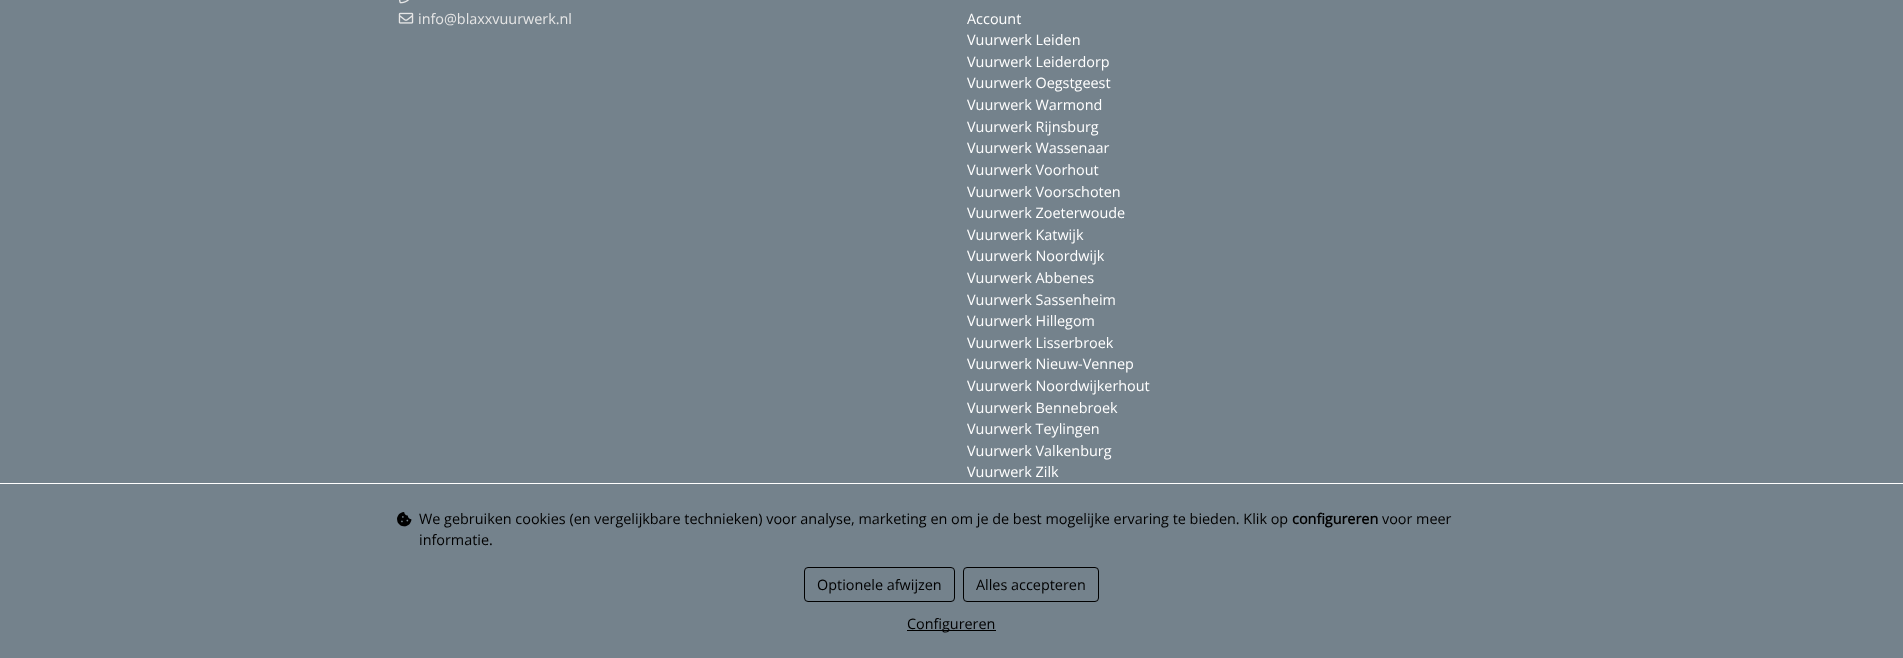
(async () => {
    const canvas = document.querySelector("canvas");
    canvas.width = 1903;
    canvas.height = 658;
    const context = canvas.getContext("2d");
    context.miterLimit = 4;
    context.fontKerning = "normal";
    function write(s, x, y, font, color) {
        context.font = font;
        context.fillStyle = color;
        context.fillText(s, x, y);
    }
    function block(x, y, w, h, color) {
        context.fillStyle = color;
        context.fillRect(x, y, w, h);
    }
    async function photo(src, x, y, w, h) {
        const img = new Image();
        img.src = src;
        await img.decode();
        context.drawImage(img, x, y, w, h);
    }

    block(0, 0, 1903, 658, "rgb(116, 130, 140)");
    await photo("media/1.png", 399, 0, 10, 4);
    await photo("media/2.png", 398, 12, 16, 12);
    write("info@blaxxvuurwerk.nl", 418, 24, "14.4px Open Sans", "rgb(230, 230, 230)");
    write("Account", 967, 24, "14.4px Open Sans", "rgb(255, 255, 255)");
    write("Vuurwerk Leiden", 967, 45, "14.4px Open Sans", "rgb(255, 255, 255)");
    write("Vuurwerk Leiderdorp", 967, 67, "14.4px Open Sans", "rgb(255, 255, 255)");
    write("Vuurwerk Oegstgeest", 967, 88, "14.4px Open Sans", "rgb(255, 255, 255)");
    write("Vuurwerk Warmond", 967, 110, "14.4px Open Sans", "rgb(255, 255, 255)");
    write("Vuurwerk Rijnsburg", 967, 132, "14.4px Open Sans", "rgb(255, 255, 255)");
    write("Vuurwerk Wassenaar", 967, 153, "14.4px Open Sans", "rgb(255, 255, 255)");
    write("Vuurwerk Voorhout", 967, 175, "14.4px Open Sans", "rgb(255, 255, 255)");
    write("Vuurwerk Voorschoten", 967, 197, "14.4px Open Sans", "rgb(255, 255, 255)");
    write("Vuurwerk Zoeterwoude", 967, 218, "14.4px Open Sans", "rgb(255, 255, 255)");
    write("Vuurwerk Katwijk", 967, 240, "14.4px Open Sans", "rgb(255, 255, 255)");
    write("Vuurwerk Noordwijk", 967, 261, "14.4px Open Sans", "rgb(255, 255, 255)");
    write("Vuurwerk Abbenes", 967, 283, "14.4px Open Sans", "rgb(255, 255, 255)");
    write("Vuurwerk Sassenheim", 967, 305, "14.4px Open Sans", "rgb(255, 255, 255)");
    write("Vuurwerk Hillegom", 967, 326, "14.4px Open Sans", "rgb(255, 255, 255)");
    write("Vuurwerk Lisserbroek", 967, 348, "14.4px Open Sans", "rgb(255, 255, 255)");
    write("Vuurwerk Nieuw-Vennep", 967, 369, "14.4px Open Sans", "rgb(255, 255, 255)");
    write("Vuurwerk Noordwijkerhout", 967, 391, "14.4px Open Sans", "rgb(255, 255, 255)");
    write("Vuurwerk Bennebroek", 967, 413, "14.4px Open Sans", "rgb(255, 255, 255)");
    write("Vuurwerk Teylingen", 967, 434, "14.4px Open Sans", "rgb(255, 255, 255)");
    write("Vuurwerk Valkenburg", 967, 456, "14.4px Open Sans", "rgb(255, 255, 255)");
    write("Vuurwerk Zilk", 967, 477, "14.4px Open Sans", "rgb(255, 255, 255)");
    block(0, 483, 1903, 1, "rgb(255, 255, 255)");
    await photo("media/3.png", 397, 512, 15, 15);
    write("We gebruiken cookies (en vergelijkbare technieken) voor analyse, marketing en om je de best mogelijke ervaring te bieden. Klik op", 419, 524, "14.4px Open Sans", "rgb(0, 0, 0)");
    write("configureren", 1292, 524, "bold 14.4px Open Sans", "rgb(0, 0, 0)");
    write("voor meer", 1382, 524, "14.4px Open Sans", "rgb(0, 0, 0)");
    write("informatie.", 419, 545, "14.4px Open Sans", "rgb(0, 0, 0)");
    context.beginPath();
    context.roundRect(804.5, 567.5, 150, 34, 3.5);
    context.strokeStyle = "rgb(0, 0, 0)";
    context.stroke();
    write("Optionele afwijzen", 817, 590, "14.4px Open Sans", "rgb(0, 0, 0)");
    context.beginPath();
    context.roundRect(963.5, 567.5, 135, 34, 3.5);
    context.stroke();
    write("Alles accepteren", 976, 590, "14.4px Open Sans", "rgb(0, 0, 0)");
    block(907, 630, 89, 1, "rgb(0, 0, 0)");
    write("Configureren", 907, 629, "14.4px Open Sans", "rgb(0, 0, 0)");
})();
